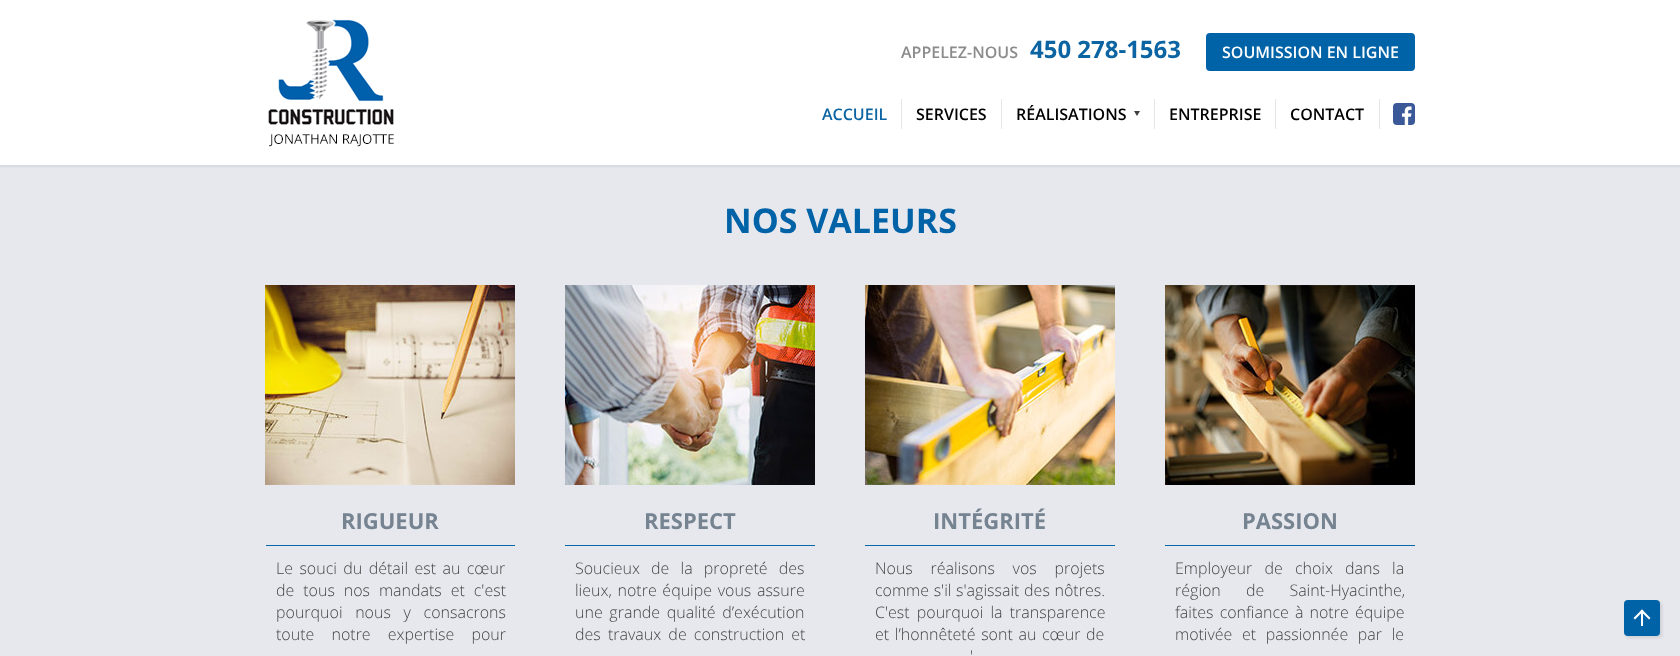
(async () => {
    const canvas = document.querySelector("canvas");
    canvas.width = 1680;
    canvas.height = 656;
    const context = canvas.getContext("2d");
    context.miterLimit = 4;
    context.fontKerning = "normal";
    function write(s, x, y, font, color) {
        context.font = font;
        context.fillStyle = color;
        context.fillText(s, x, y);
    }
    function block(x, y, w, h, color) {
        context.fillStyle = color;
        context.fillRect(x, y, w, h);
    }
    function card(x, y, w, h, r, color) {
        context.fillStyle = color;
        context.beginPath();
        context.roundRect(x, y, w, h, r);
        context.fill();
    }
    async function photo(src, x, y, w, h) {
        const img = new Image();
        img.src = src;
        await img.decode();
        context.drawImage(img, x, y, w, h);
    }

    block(0, 0, 1680, 656, "rgb(230, 232, 238)");
    context.fillStyle = "rgba(0, 0, 0, 0.1)";
    context.filter = "blur(1.5px)";
    context.beginPath();
    context.rect(-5, 1, 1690, 165);
    context.fill();
    context.filter = "none";
    block(0, 0, 1680, 165, "rgb(255, 255, 255)");
    await photo("media/1.png", 268, 19, 126, 128);
    write("APPELEZ-NOUS", 901, 58, "600 16px Open Sans", "rgb(139, 139, 139)");
    write("450 278-1563", 1030, 58, "bold 24px Open Sans", "rgb(12, 100, 163)");
    card(1206, 33, 209, 38, 4, "rgb(0, 98, 167)");
    write("SOUMISSION EN LIGNE", 1222, 58, "600 16px Open Sans", "rgb(255, 255, 255)");
    write("ACCUEIL", 822, 120, "600 16px Open Sans", "rgb(12, 100, 163)");
    block(901, 99, 1, 30, "rgb(231, 231, 231)");
    write("SERVICES", 916, 120, "600 16px Open Sans", "rgb(0, 0, 0)");
    block(1001, 99, 1, 30, "rgb(231, 231, 231)");
    write("RÉALISATIONS", 1016, 120, "600 16px Open Sans", "rgb(0, 0, 0)");
    context.fillStyle = "rgb(64, 64, 64)";
    context.beginPath();
    context.moveTo(1134, 111);
    context.lineTo(1140, 111);
    context.lineTo(1137, 116);
    context.closePath();
    context.fill();
    block(1154, 99, 1, 30, "rgb(231, 231, 231)");
    write("ENTREPRISE", 1169, 120, "600 16px Open Sans", "rgb(0, 0, 0)");
    block(1275, 99, 1, 30, "rgb(231, 231, 231)");
    write("CONTACT", 1290, 120, "600 16px Open Sans", "rgb(0, 0, 0)");
    block(1379, 99, 1, 30, "rgb(231, 231, 231)");
    await photo("media/2.png", 1393, 103, 22, 22);
    write("NOS VALEURS", 724, 233, "bold 34px Open Sans", "rgb(0, 98, 167)");
    await photo("media/3.png", 265, 285, 250, 200);
    block(266, 545, 249, 1, "rgb(8, 104, 170)");
    write("RIGUEUR", 341, 529, "bold 22px Open Sans", "rgb(118, 131, 145)");
    context.wordSpacing = "2.25px";
    write("Le souci du détail est au cœur", 276, 574, "300 16px Open Sans", "rgb(68, 68, 68)");
    context.wordSpacing = "4.75px";
    write("de tous nos mandats et c'est", 276, 596, "300 16px Open Sans", "rgb(68, 68, 68)");
    context.wordSpacing = "8.5px";
    write("pourquoi nous y consacrons", 276, 618, "300 16px Open Sans", "rgb(68, 68, 68)");
    context.wordSpacing = "13px";
    write("toute notre expertise pour", 276, 640, "300 16px Open Sans", "rgb(68, 68, 68)");
    await photo("media/4.png", 565, 285, 250, 200);
    block(565, 545, 250, 1, "rgb(8, 104, 170)");
    context.wordSpacing = "0px";
    write("RESPECT", 644, 529, "bold 22px Open Sans", "rgb(118, 131, 145)");
    context.wordSpacing = "7px";
    write("Soucieux de la propreté des", 575, 574, "300 16px Open Sans", "rgb(68, 68, 68)");
    context.wordSpacing = "1.5px";
    write("lieux, notre équipe vous assure", 575, 596, "300 16px Open Sans", "rgb(68, 68, 68)");
    context.wordSpacing = "2.5px";
    write("une grande qualité d’exécution", 575, 618, "300 16px Open Sans", "rgb(68, 68, 68)");
    context.wordSpacing = "3px";
    write("des travaux de construction et", 575, 640, "300 16px Open Sans", "rgb(68, 68, 68)");
    await photo("media/5.png", 865, 285, 250, 200);
    block(865, 545, 250, 1, "rgb(8, 104, 170)");
    context.wordSpacing = "0px";
    write("INTÉGRITÉ", 933, 529, "bold 22px Open Sans", "rgb(118, 131, 145)");
    context.wordSpacing = "13.5px";
    write("Nous réalisons vos projets", 875, 574, "300 16px Open Sans", "rgb(68, 68, 68)");
    context.wordSpacing = "0.5px";
    write("comme s'il s'agissait des nôtres.", 875, 596, "300 16px Open Sans", "rgb(68, 68, 68)");
    context.wordSpacing = "3px";
    write("C'est pourquoi la transparence", 875, 618, "300 16px Open Sans", "rgb(68, 68, 68)");
    context.wordSpacing = "1.5px";
    write("et l’honnêteté sont au cœur de", 875, 640, "300 16px Open Sans", "rgb(68, 68, 68)");
    context.wordSpacing = "0px";
    write("'", 970, 662, "300 16px Open Sans", "rgb(68, 68, 68)");
    await photo("media/6.png", 1165, 285, 250, 200);
    block(1165, 545, 250, 1, "rgb(8, 104, 170)");
    write("PASSION", 1242, 529, "bold 22px Open Sans", "rgb(118, 131, 145)");
    context.wordSpacing = "8px";
    write("Employeur de choix dans la", 1175, 574, "300 16px Open Sans", "rgb(68, 68, 68)");
    context.wordSpacing = "21px";
    write("région de Saint-Hyacinthe,", 1175, 596, "300 16px Open Sans", "rgb(68, 68, 68)");
    context.wordSpacing = "2px";
    write("faites confiance à notre équipe", 1175, 618, "300 16px Open Sans", "rgb(68, 68, 68)");
    context.wordSpacing = "5.5px";
    write("motivée et passionnée par le", 1175, 640, "300 16px Open Sans", "rgb(68, 68, 68)");
    context.fillStyle = "rgba(0, 0, 0, 0.1)";
    context.filter = "blur(1.5px)";
    context.beginPath();
    context.roundRect(1626, 602, 36, 36, 4);
    context.fill();
    context.filter = "none";
    card(1624, 600, 36, 36, 4, "rgb(0, 98, 167)");
    context.fillStyle = "rgb(255, 255, 255)";
    context.beginPath();
    context.moveTo(1642, 609.5);
    context.lineTo(1650.5, 618);
    context.lineTo(1649, 619.5);
    context.lineTo(1640.5, 611);
    context.closePath();
    context.fill();
    context.beginPath();
    context.moveTo(1642, 609.5);
    context.lineTo(1643.5, 611);
    context.lineTo(1635, 619.5);
    context.lineTo(1633.5, 618);
    context.closePath();
    context.fill();
    block(1641, 612, 2, 14, "rgb(255, 255, 255)");
})();
